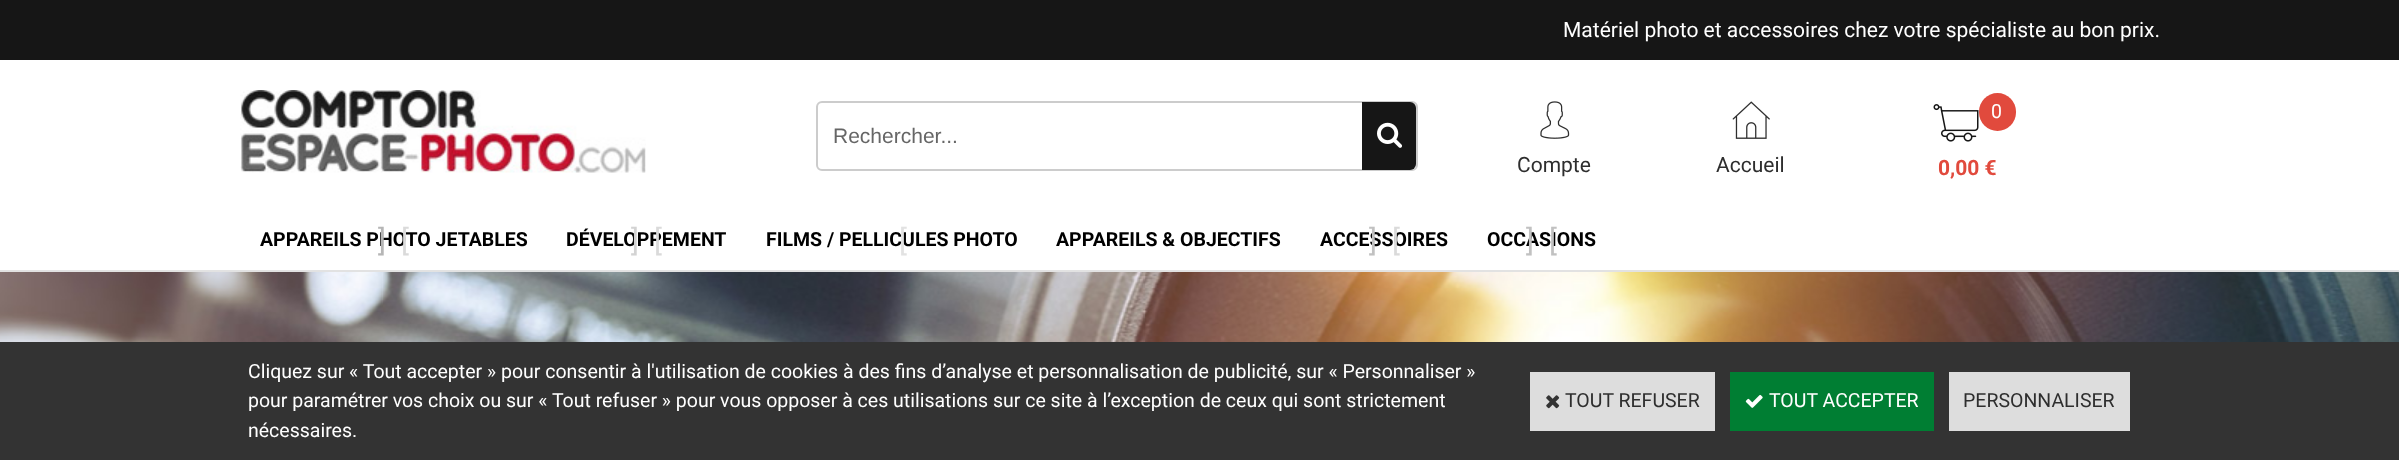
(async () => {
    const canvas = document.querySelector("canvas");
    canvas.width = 2399;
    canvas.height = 460;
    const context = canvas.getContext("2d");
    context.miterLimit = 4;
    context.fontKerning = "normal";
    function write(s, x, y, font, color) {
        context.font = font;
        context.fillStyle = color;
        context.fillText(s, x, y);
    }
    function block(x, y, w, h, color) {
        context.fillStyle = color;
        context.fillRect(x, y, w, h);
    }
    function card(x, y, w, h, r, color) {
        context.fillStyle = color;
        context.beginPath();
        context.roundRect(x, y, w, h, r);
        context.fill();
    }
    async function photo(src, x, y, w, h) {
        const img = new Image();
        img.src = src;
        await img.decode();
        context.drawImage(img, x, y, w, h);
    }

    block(0, 0, 2399, 460, "rgb(255, 255, 255)");
    await photo("media/1.png", 0, 272, 2399, 70);
    block(0, 0, 2399, 60, "rgb(22, 22, 22)");
    block(0, 270, 2399, 2, "rgb(226, 226, 226)");
    write("Matériel photo et accessoires chez votre spécialiste au bon prix.", 1563, 37, "21px Roboto", "rgb(255, 255, 255)");
    await photo("media/2.png", 240, 90, 406, 83);
    context.beginPath();
    context.roundRect(817, 102, 600, 68, 5);
    context.strokeStyle = "rgb(204, 204, 204)";
    context.lineWidth = 2;
    context.stroke();
    write("Rechercher...", 833, 143, "21px Liberation Sans", "rgb(102, 102, 102)");
    context.fillStyle = "rgb(22, 22, 22)";
    context.beginPath();
    context.roundRect(1362, 102, 54, 68, [0, 6, 6, 0]);
    context.fill();
    await photo("media/3.png", 1377, 122, 25, 26);
    await photo("media/4.png", 1540, 101, 30, 38);
    write("Compte", 1517, 172, "21px Roboto", "rgb(46, 46, 46)");
    await photo("media/5.png", 1732, 101, 38, 38);
    write("Accueil", 1716, 172, "21px Roboto", "rgb(46, 46, 46)");
    await photo("media/6.png", 1933, 104, 46, 38);
    card(1979, 93, 37, 38, 18.5, "rgb(225, 74, 61)");
    write("0", 1991, 118, "19.5px Roboto", "rgb(255, 255, 255)");
    write("0,00 €", 1938, 175, "bold 21px Roboto", "rgb(225, 74, 61)");
    write("APPAREILS PHOTO JETABLES", 260, 246, "bold 19.5px Roboto", "rgb(0, 0, 0)");
    write("]", 378, 251, "30px Roboto", "rgb(182, 182, 182)");
    write("[", 401, 251, "30px Roboto", "rgb(218, 218, 218)");
    write("DÉVELOPPEMENT", 566, 246, "bold 19.5px Roboto", "rgb(0, 0, 0)");
    write("]", 631, 251, "30px Roboto", "rgb(211, 211, 211)");
    write("[", 654, 251, "30px Roboto", "rgb(218, 218, 218)");
    write("FILMS / PELLICULES PHOTO", 766, 246, "bold 19.5px Roboto", "rgb(0, 0, 0)");
    write("[", 899, 251, "30px Roboto", "rgb(226, 226, 226)");
    write("APPAREILS & OBJECTIFS", 1056, 246, "bold 19.5px Roboto", "rgb(0, 0, 0)");
    write("ACCESSOIRES", 1320, 246, "bold 19.5px Roboto", "rgb(0, 0, 0)");
    write("]", 1369, 251, "30px Roboto", "rgb(193, 193, 193)");
    write("[", 1392, 251, "30px Roboto", "rgb(218, 218, 218)");
    write("OCCASIONS", 1487, 246, "bold 19.5px Roboto", "rgb(0, 0, 0)");
    write("]", 1526, 251, "30px Roboto", "rgb(193, 193, 193)");
    write("[", 1549, 251, "30px Roboto", "rgb(193, 193, 193)");
    block(0, 342, 2399, 118, "rgb(51, 51, 51)");
    write("Cliquez sur « Tout accepter » pour consentir à l'utilisation de cookies à des fins d’analyse et personnalisation de publicité, sur « Personnaliser »", 248, 378, "19.5px Roboto", "rgb(255, 255, 255)");
    write("pour paramétrer vos choix ou sur « Tout refuser » pour vous opposer à ces utilisations sur ce site à l’exception de ceux qui sont strictement", 248, 407, "19.5px Roboto", "rgb(255, 255, 255)");
    write("nécessaires.", 248, 437, "19.5px Roboto", "rgb(255, 255, 255)");
    block(1530, 372, 185, 59, "rgb(221, 221, 221)");
    await photo("media/7.png", 1546, 395, 14, 14);
    write("TOUT REFUSER", 1565, 407, "19.5px Roboto", "rgb(46, 46, 46)");
    block(1730, 372, 204, 59, "rgb(0, 126, 51)");
    await photo("media/8.png", 1745, 394, 18, 14);
    write("TOUT ACCEPTER", 1769, 407, "19.5px Roboto", "rgb(255, 255, 255)");
    block(1949, 372, 181, 59, "rgb(221, 221, 221)");
    write("PERSONNALISER", 1963, 407, "19.5px Roboto", "rgb(46, 46, 46)");
})();
